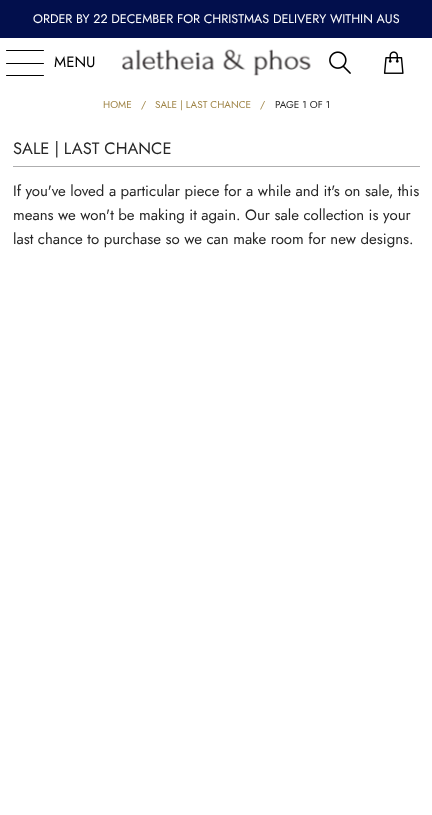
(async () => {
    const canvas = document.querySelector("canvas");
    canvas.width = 432;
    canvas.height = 815;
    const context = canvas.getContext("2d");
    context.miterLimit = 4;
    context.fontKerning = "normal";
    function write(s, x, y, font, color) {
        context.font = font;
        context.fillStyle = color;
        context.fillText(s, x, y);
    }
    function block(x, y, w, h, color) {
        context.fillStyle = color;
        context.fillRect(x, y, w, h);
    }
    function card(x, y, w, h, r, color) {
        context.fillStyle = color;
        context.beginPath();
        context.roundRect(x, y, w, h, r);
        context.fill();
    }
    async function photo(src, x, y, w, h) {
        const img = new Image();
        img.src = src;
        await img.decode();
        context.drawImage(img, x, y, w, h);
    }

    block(0, 0, 432, 815, "rgb(255, 255, 255)");
    block(0, 0, 432, 38, "rgb(2, 15, 76)");
    write("ORDER BY 22 DECEMBER FOR CHRISTMAS DELIVERY WITHIN AUS", 33, 23, "12.5px Jost", "rgb(255, 255, 255)");
    card(6, 50, 38, 1, 0.5, "rgb(0, 0, 0)");
    card(6, 63, 38, 1, 0.5, "rgb(0, 0, 0)");
    card(6, 75, 38, 1, 0.5, "rgb(0, 0, 0)");
    write("MENU", 54, 67, "15px Jost", "rgb(0, 0, 0)");
    await photo("media/1.png", 122, 49, 189, 27);
    await photo("media/2.png", 329, 51, 22, 23);
    await photo("media/3.png", 383, 51, 21, 23);
    write("HOME", 103, 108, "10px Jost", "rgb(159, 132, 70)");
    write("/", 141, 108, "10px Jost", "rgb(159, 132, 70)");
    write("SALE | LAST CHANCE", 155, 108, "10px Jost", "rgb(159, 132, 70)");
    write("/", 260, 108, "10px Jost", "rgb(159, 132, 70)");
    write("PAGE 1 OF 1", 275, 108, "10px Jost", "rgb(38, 38, 38)");
    write("SALE | LAST CHANCE", 13, 154, "16.5px Jost", "rgb(38, 38, 38)");
    block(13, 166, 407, 1, "rgb(174, 174, 175)");
    write("If you've loved a particular piece for a while and it's on sale, this", 13, 196, "15px Jost", "rgb(38, 38, 38)");
    write("means we won't be making it again. Our sale collection is your", 13, 220, "15px Jost", "rgb(38, 38, 38)");
    write("last chance to purchase so we can make room for new designs.", 13, 244, "15px Jost", "rgb(38, 38, 38)");
})();
